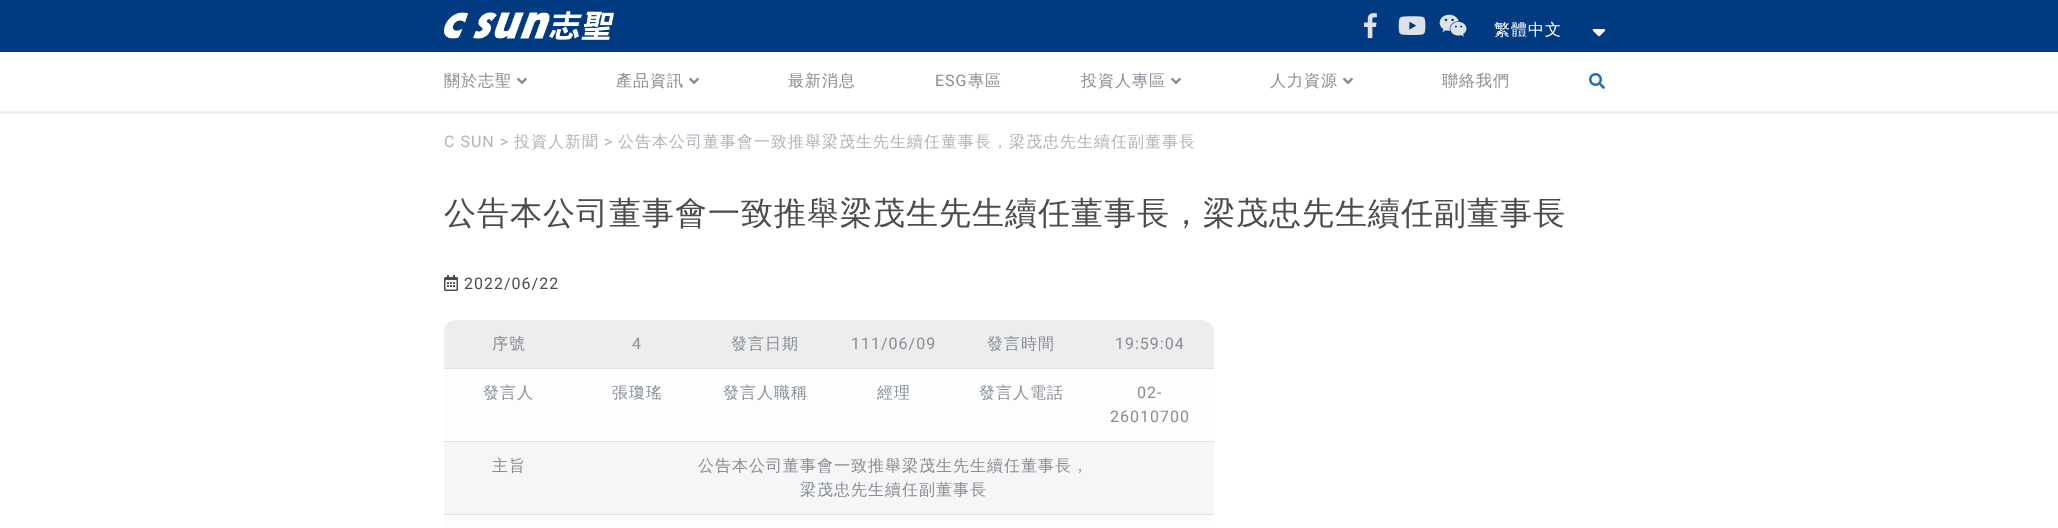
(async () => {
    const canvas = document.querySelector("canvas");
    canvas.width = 2058;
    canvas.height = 528;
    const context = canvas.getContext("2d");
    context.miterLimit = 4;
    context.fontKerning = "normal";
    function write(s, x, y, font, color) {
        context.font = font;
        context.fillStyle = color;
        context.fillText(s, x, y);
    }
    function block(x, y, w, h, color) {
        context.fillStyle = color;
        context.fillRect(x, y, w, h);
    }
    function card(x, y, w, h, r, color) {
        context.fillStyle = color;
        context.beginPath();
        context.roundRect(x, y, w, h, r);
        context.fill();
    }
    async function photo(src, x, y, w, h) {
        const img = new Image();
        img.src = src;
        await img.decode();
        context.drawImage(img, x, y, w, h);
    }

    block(0, 0, 2058, 528, "rgb(255, 255, 255)");
    block(0, 111, 2058, 3, "rgb(236, 239, 241)");
    block(0, 0, 2058, 52, "rgb(0, 58, 129)");
    await photo("media/1.png", 444, 11, 170, 29);
    await photo("media/2.png", 1364, 13, 13, 26);
    await photo("media/3.png", 1398, 16, 28, 19);
    await photo("media/4.png", 1439, 14, 28, 23);
    context.letterSpacing = "1px";
    write("繁體中文", 1494, 35, "500 16px WenQuanYi Zen Hei", "rgb(255, 255, 255)");
    await photo("media/5.png", 1592, 29, 14, 8);
    write("關於志聖", 444, 86, "500 16px WenQuanYi Zen Hei", "rgb(134, 142, 150)");
    await photo("media/6.png", 517, 77, 10, 8);
    write("產品資訊", 616, 86, "500 16px WenQuanYi Zen Hei", "rgb(134, 142, 150)");
    await photo("media/6.png", 689, 77, 10, 8);
    write("最新消息", 788, 86, "500 16px WenQuanYi Zen Hei", "rgb(134, 142, 150)");
    write("ESG", 935, 86, "16px Roboto", "rgb(134, 142, 150)");
    write("專區", 968, 86, "500 16px WenQuanYi Zen Hei", "rgb(134, 142, 150)");
    write("投資人專區", 1081, 86, "500 16px WenQuanYi Zen Hei", "rgb(134, 142, 150)");
    await photo("media/6.png", 1171, 77, 10, 8);
    write("人力資源", 1270, 86, "500 16px WenQuanYi Zen Hei", "rgb(134, 142, 150)");
    await photo("media/6.png", 1343, 77, 10, 8);
    write("聯絡我們", 1442, 86, "500 16px WenQuanYi Zen Hei", "rgb(134, 142, 150)");
    await photo("media/7.png", 1589, 73, 16, 16);
    write("C SUN >", 444, 147, "16px Roboto", "rgb(173, 181, 189)");
    write("投資人新聞", 514, 147, "500 16px WenQuanYi Zen Hei", "rgb(173, 181, 189)");
    write(">", 604, 147, "16px Roboto", "rgb(173, 181, 189)");
    write("公告本公司董事會一致推舉梁茂生先生續任董事長，梁茂忠先生續任副董事長", 618, 147, "500 16px WenQuanYi Zen Hei", "rgb(173, 181, 189)");
    write("公告本公司董事會一致推舉梁茂生先生續任董事長，梁茂忠先生續任副董事長", 444, 224, "500 32px WenQuanYi Zen Hei", "rgb(76, 76, 76)");
    await photo("media/8.png", 444, 275, 14, 16);
    write("2022/06/22", 464, 289, "16px Roboto", "rgb(76, 76, 76)");
    card(444, 320, 770, 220, 12, "rgb(246, 246, 246)");
    context.fillStyle = "rgb(237, 237, 237)";
    context.beginPath();
    context.roundRect(444, 320, 130, 48, [12, 0, 0, 0]);
    context.fill();
    write("序號", 492, 349, "500 16px WenQuanYi Zen Hei", "rgb(134, 142, 150)");
    block(574, 320, 512, 48, "rgb(237, 237, 237)");
    write("4", 632, 349, "16px Roboto", "rgb(134, 142, 150)");
    write("發言日期", 731, 349, "500 16px WenQuanYi Zen Hei", "rgb(134, 142, 150)");
    write("111/06/09", 851, 349, "16px Roboto", "rgb(134, 142, 150)");
    write("發言時間", 987, 349, "500 16px WenQuanYi Zen Hei", "rgb(134, 142, 150)");
    context.fillStyle = "rgb(237, 237, 237)";
    context.beginPath();
    context.roundRect(1086, 320, 128, 48, [0, 12, 0, 0]);
    context.fill();
    write("19:59:04", 1115, 349, "16px Roboto", "rgb(134, 142, 150)");
    block(444, 369, 770, 72, "rgb(253, 253, 253)");
    write("發言人", 483, 398, "500 16px WenQuanYi Zen Hei", "rgb(134, 142, 150)");
    write("張瓊瑤", 612, 398, "500 16px WenQuanYi Zen Hei", "rgb(134, 142, 150)");
    write("發言人職稱", 723, 398, "500 16px WenQuanYi Zen Hei", "rgb(134, 142, 150)");
    write("經理", 877, 398, "500 16px WenQuanYi Zen Hei", "rgb(134, 142, 150)");
    write("發言人電話", 979, 398, "500 16px WenQuanYi Zen Hei", "rgb(134, 142, 150)");
    block(444, 368, 770, 1, "rgb(222, 226, 230)");
    write("02-", 1137, 398, "16px Roboto", "rgb(134, 142, 150)");
    write("26010700", 1110, 422, "16px Roboto", "rgb(134, 142, 150)");
    write("主旨", 492, 471, "500 16px WenQuanYi Zen Hei", "rgb(134, 142, 150)");
    block(444, 441, 770, 1, "rgb(222, 226, 230)");
    write("公告本公司董事會一致推舉梁茂生先生續任董事長，", 698, 471, "500 16px WenQuanYi Zen Hei", "rgb(134, 142, 150)");
    write("梁茂忠先生續任副董事長", 800, 495, "500 16px WenQuanYi Zen Hei", "rgb(134, 142, 150)");
    block(444, 515, 770, 13, "rgb(253, 253, 253)");
    block(444, 514, 770, 1, "rgb(222, 226, 230)");
})();
